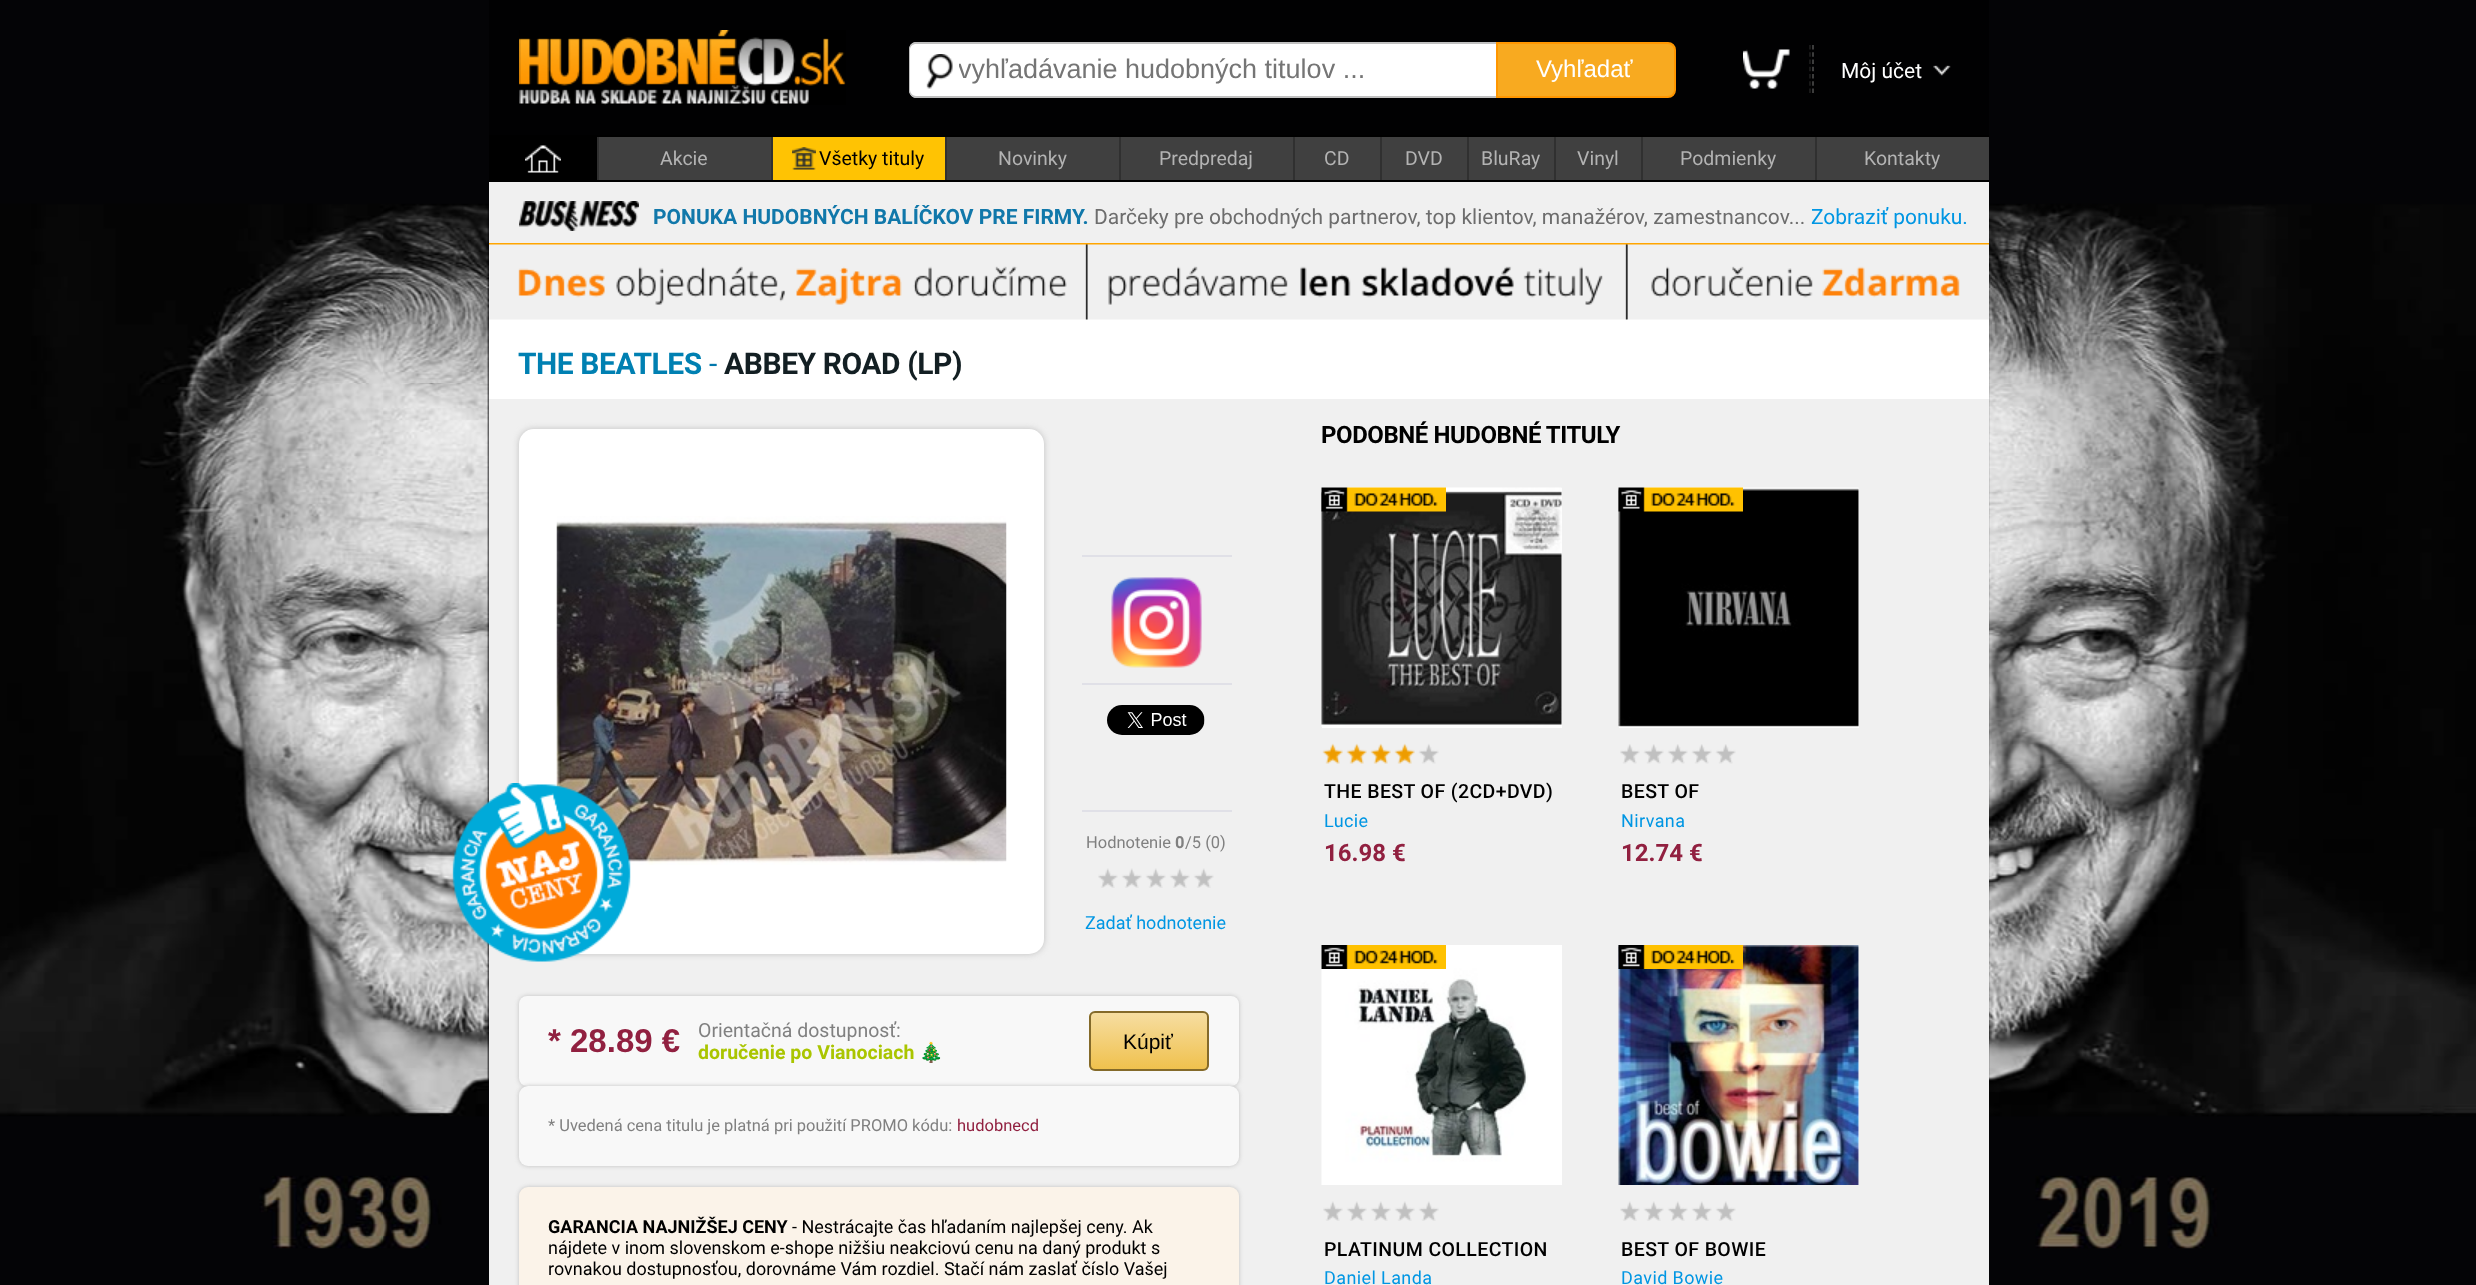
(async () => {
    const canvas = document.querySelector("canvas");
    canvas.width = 2476;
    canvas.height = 1285;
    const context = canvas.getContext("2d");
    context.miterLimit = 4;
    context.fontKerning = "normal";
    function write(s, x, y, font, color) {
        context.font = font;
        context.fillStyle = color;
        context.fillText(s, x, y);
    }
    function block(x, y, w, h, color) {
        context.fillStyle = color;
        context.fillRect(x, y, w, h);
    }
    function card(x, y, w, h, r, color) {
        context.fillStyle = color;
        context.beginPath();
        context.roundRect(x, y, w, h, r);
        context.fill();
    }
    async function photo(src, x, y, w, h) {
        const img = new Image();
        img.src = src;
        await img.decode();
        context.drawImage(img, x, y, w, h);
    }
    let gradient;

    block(0, 0, 2476, 1285, "rgb(255, 255, 255)");
    await photo("media/1.png", 0, 0, 2476, 1285);
    block(489, 0, 1500, 135, "rgba(0, 0, 0, 0.6)");
    await photo("media/2.png", 519, 30, 327, 75);
    context.fillStyle = "rgb(255, 255, 255)";
    context.beginPath();
    context.roundRect(909, 42, 587, 56, [8, 0, 0, 8]);
    context.fill();
    context.fillStyle = "rgb(192, 192, 192)";
    context.beginPath();
    context.moveTo(916, 42);
    context.lineTo(1496, 42);
    context.lineTo(1496, 98);
    context.lineTo(916, 98);
    context.bezierCurveTo(912, 98, 909, 94, 909, 90);
    context.lineTo(909, 50);
    context.bezierCurveTo(909, 45, 912, 42, 916, 42);
    context.closePath();
    context.moveTo(916, 44);
    context.lineTo(1496, 44);
    context.lineTo(1496, 96);
    context.lineTo(916, 96);
    context.bezierCurveTo(913, 96, 910, 93, 910, 90);
    context.lineTo(910, 50);
    context.bezierCurveTo(910, 46, 913, 44, 916, 44);
    context.closePath();
    context.fill("evenodd");
    await photo("media/3.png", 926, 54, 27, 35);
    context.save();
    context.beginPath();
    context.rect(959, 54, 525, 32);
    context.clip();
    write("vyhľadávanie hudobných titulov ...", 958, 78, "27px Liberation Sans", "rgb(117, 117, 117)");
    context.restore();
    context.fillStyle = "rgb(248, 170, 32)";
    context.beginPath();
    context.roundRect(1497, 43, 178, 54, [0, 7, 7, 0]);
    context.fill();
    context.strokeStyle = "rgb(255, 150, 0)";
    context.lineWidth = 2;
    context.stroke();
    write("Vyhľadať", 1536, 77, "24px Liberation Sans", "rgb(255, 255, 255)");
    await photo("media/4.png", 1743, 49, 47, 40);
    context.beginPath();
    context.moveTo(1813, 45);
    context.lineTo(1813, 93);
    context.strokeStyle = "rgb(80, 80, 80)";
    context.lineWidth = 1.5;
    context.setLineDash([4.5, 2.75]);
    context.stroke();
    context.beginPath();
    context.moveTo(1810, 45);
    context.lineTo(1810, 93);
    context.strokeStyle = "rgb(32, 32, 32)";
    context.stroke();
    await photo("media/5.png", 1933, 65, 18, 11);
    write("Môj účet", 1841, 78, "21px Roboto", "rgb(255, 255, 255)");
    block(489, 135, 1500, 47, "rgb(0, 0, 0)");
    await photo("media/6.png", 525, 145, 36, 28);
    block(597, 137, 2, 43, "rgb(48, 48, 48)");
    block(599, 137, 172, 43, "rgb(64, 64, 64)");
    write("Akcie", 660, 165, "19.5px Roboto", "rgb(179, 179, 179)");
    block(771, 137, 2, 43, "rgb(48, 48, 48)");
    block(773, 137, 172, 43, "rgb(255, 195, 3)");
    await photo("media/7.png", 792, 147, 24, 23);
    write("Všetky tituly", 819, 165, "19.5px Roboto", "rgb(0, 0, 0)");
    block(945, 137, 2, 43, "rgb(48, 48, 48)");
    block(947, 137, 172, 43, "rgb(64, 64, 64)");
    write("Novinky", 998, 165, "19.5px Roboto", "rgb(179, 179, 179)");
    block(1119, 137, 2, 43, "rgb(48, 48, 48)");
    block(1121, 137, 172, 43, "rgb(64, 64, 64)");
    write("Predpredaj", 1159, 165, "19.5px Roboto", "rgb(179, 179, 179)");
    block(1293, 137, 2, 43, "rgb(48, 48, 48)");
    block(1295, 137, 85, 43, "rgb(64, 64, 64)");
    write("CD", 1324, 165, "19.5px Roboto", "rgb(179, 179, 179)");
    block(1380, 137, 2, 43, "rgb(48, 48, 48)");
    block(1382, 137, 85, 43, "rgb(64, 64, 64)");
    write("DVD", 1405, 165, "19.5px Roboto", "rgb(179, 179, 179)");
    block(1467, 137, 2, 43, "rgb(48, 48, 48)");
    block(1469, 137, 85, 43, "rgb(64, 64, 64)");
    write("BluRay", 1481, 165, "19.5px Roboto", "rgb(179, 179, 179)");
    block(1554, 137, 2, 43, "rgb(48, 48, 48)");
    block(1556, 137, 85, 43, "rgb(64, 64, 64)");
    write("Vinyl", 1577, 165, "19.5px Roboto", "rgb(179, 179, 179)");
    block(1641, 137, 2, 43, "rgb(48, 48, 48)");
    block(1643, 137, 172, 43, "rgb(64, 64, 64)");
    write("Podmienky", 1680, 165, "19.5px Roboto", "rgb(179, 179, 179)");
    block(1815, 137, 2, 43, "rgb(48, 48, 48)");
    block(1817, 137, 172, 43, "rgb(64, 64, 64)");
    write("Kontakty", 1864, 165, "19.5px Roboto", "rgb(179, 179, 179)");
    block(489, 319, 1500, 80, "rgb(255, 255, 255)");
    block(489, 182, 1500, 61, "rgb(240, 240, 240)");
    block(489, 243, 1500, 2, "rgb(255, 165, 0)");
    await photo("media/8.png", 519, 201, 120, 30);
    write("PONUKA HUDOBNÝCH BALÍČKOV PRE FIRMY.", 653, 224, "bold 21px Roboto", "rgb(17, 120, 170)");
    write("Darčeky pre obchodných partnerov, top klientov, manažérov, zamestnancov...", 1094, 224, "21px Roboto", "rgb(109, 109, 109)");
    write("Zobraziť ponuku.", 1811, 224, "21px Roboto", "rgb(0, 150, 227)");
    await photo("media/9.png", 489, 244, 1500, 76);
    context.letterSpacing = "-0.45px";
    write("THE BEATLES", 518, 374, "bold 30px Roboto", "rgb(0, 128, 178)");
    write("-", 709, 374, "30px Roboto", "rgb(0, 119, 172)");
    write("ABBEY ROAD (LP)", 724, 374, "bold 30px Roboto", "rgb(19, 31, 35)");
    block(489, 399, 1500, 886, "rgb(240, 240, 240)");
    context.fillStyle = "rgb(192, 192, 192)";
    context.filter = "blur(3px)";
    context.beginPath();
    context.roundRect(519, 429, 525, 525, 15);
    context.fill();
    context.filter = "none";
    card(519, 429, 525, 525, 15, "rgb(255, 255, 255)");
    await photo("media/10.png", 556, 516, 451, 349);
    block(1082, 555, 150, 2, "rgb(224, 224, 231)");
    await photo("media/11.png", 1111, 577, 91, 91);
    block(1082, 683, 150, 2, "rgb(224, 224, 231)");
    await photo("media/12.png", 1107, 705, 98, 30);
    await photo("media/13.png", 452, 783, 179, 179);
    block(1082, 810, 150, 2, "rgb(224, 224, 231)");
    context.letterSpacing = "0px";
    write("Hodnotenie", 1086, 848, "16.5px Roboto", "rgb(128, 128, 128)");
    write("0", 1175, 848, "bold 16.5px Roboto", "rgb(128, 128, 128)");
    write("/5 (0)", 1185, 848, "16.5px Roboto", "rgb(128, 128, 128)");
    await photo("media/14.png", 1098, 868, 116, 20);
    write("Zadať hodnotenie", 1085, 929, "18px Roboto", "rgb(0, 150, 227)");
    context.fillStyle = "rgb(192, 192, 192)";
    context.filter = "blur(2px)";
    context.beginPath();
    context.roundRect(519, 996, 720, 90, 8);
    context.fill();
    context.filter = "none";
    card(519, 996, 720, 90, 8, "rgb(248, 248, 248)");
    write("* 28.89 €", 548, 1052, "bold 33px Liberation Sans", "rgb(145, 32, 64)");
    write("Orientačná dostupnosť:", 698, 1037, "19.5px Roboto", "rgb(128, 128, 128)");
    write("doručenie po Vianociach", 698, 1059, "bold 19.5px Roboto", "rgb(170, 197, 0)");
    write("🎄", 919, 1059, "19.5px Noto Color Emoji", "rgb(128, 128, 128)");
    context.save();
    context.beginPath();
    context.roundRect(1089, 1011, 120, 60, 6);
    context.clip();
    gradient = context.createLinearGradient(1091, 1013, 1091, 1070);
    gradient.addColorStop(0, "rgb(246, 221, 161)");
    gradient.addColorStop(1, "rgb(240, 193, 76)");
    context.fillStyle = gradient;
    context.fillRect(1089, 1013, 120, 57);
    context.restore();
    context.beginPath();
    context.roundRect(1090, 1012, 118, 58, 5);
    context.strokeStyle = "rgb(132, 106, 42)";
    context.lineWidth = 2;
    context.setLineDash([]);
    context.stroke();
    write("Kúpiť", 1123, 1049, "21px Liberation Sans", "rgb(0, 0, 0)");
    context.fillStyle = "rgb(192, 192, 192)";
    context.filter = "blur(2px)";
    context.beginPath();
    context.roundRect(519, 1086, 720, 80, 9);
    context.fill();
    context.filter = "none";
    card(519, 1086, 720, 80, 9, "rgb(248, 248, 248)");
    write("* Uvedená cena titulu je platná pri použití PROMO kódu:", 548, 1131, "16.5px Roboto", "rgb(128, 128, 128)");
    write("hudobnecd", 957, 1131, "16.5px Roboto", "rgb(145, 32, 64)");
    context.fillStyle = "rgb(192, 192, 192)";
    context.filter = "blur(2px)";
    context.beginPath();
    context.roundRect(519, 1187, 720, 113, 9);
    context.fill();
    context.filter = "none";
    card(519, 1187, 720, 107, 9, "rgb(251, 243, 233)");
    write("GARANCIA NAJNIŽŠEJ CENY", 548, 1233, "bold 18px Roboto", "rgb(0, 0, 0)");
    write("- Nestrácajte čas hľadaním najlepšej ceny. Ak", 792, 1233, "18px Roboto", "rgb(0, 0, 0)");
    write("nájdete v inom slovenskom e-shope nižšiu neakciovú cenu na daný produkt s", 548, 1254, "18px Roboto", "rgb(0, 0, 0)");
    write("rovnakou dostupnosťou, dorovnáme Vám rozdiel. Stačí nám zaslať číslo Vašej", 548, 1275, "18px Roboto", "rgb(0, 0, 0)");
    context.letterSpacing = "-0.45px";
    write("PODOBNÉ HUDOBNÉ TITULY", 1321, 443, "bold 24px Roboto", "rgb(0, 0, 0)");
    block(1322, 488, 240, 240, "rgb(255, 255, 255)");
    await photo("media/15.png", 1321, 487, 241, 240);
    await photo("media/16.png", 1321, 487, 125, 25);
    await photo("media/17.png", 1322, 743, 117, 21);
    context.letterSpacing = "0.4px";
    write("THE BEST OF (2CD+DVD)", 1324, 798, "500 19.5px Roboto", "rgb(0, 0, 0)");
    write("Lucie", 1324, 827, "18px Roboto", "rgb(0, 150, 227)");
    context.letterSpacing = "0px";
    write("16.98 €", 1324, 861, "bold 24px Roboto", "rgb(145, 32, 64)");
    block(1619, 488, 240, 240, "rgb(255, 255, 255)");
    await photo("media/18.png", 1618, 487, 241, 240);
    await photo("media/19.png", 1618, 487, 125, 25);
    await photo("media/20.png", 1620, 744, 116, 20);
    context.letterSpacing = "0.4px";
    write("BEST OF", 1621, 798, "500 19.5px Roboto", "rgb(0, 0, 0)");
    write("Nirvana", 1621, 827, "18px Roboto", "rgb(0, 150, 227)");
    context.letterSpacing = "0px";
    write("12.74 €", 1621, 861, "bold 24px Roboto", "rgb(145, 32, 64)");
    block(1528, 945, 34, 240, "rgb(255, 255, 255)");
    await photo("media/21.png", 1321, 945, 207, 240);
    await photo("media/22.png", 1321, 945, 125, 24);
    await photo("media/23.png", 1323, 1201, 116, 20);
    context.letterSpacing = "0.4px";
    write("PLATINUM COLLECTION", 1324, 1256, "500 19.5px Roboto", "rgb(0, 0, 0)");
    write("Daniel Landa", 1324, 1284, "18px Roboto", "rgb(0, 150, 227)");
    block(1858, 945, 1, 240, "rgb(255, 255, 255)");
    await photo("media/24.png", 1618, 945, 241, 240);
    await photo("media/25.png", 1618, 945, 125, 24);
    await photo("media/14.png", 1620, 1201, 116, 20);
    write("BEST OF BOWIE", 1621, 1256, "500 19.5px Roboto", "rgb(0, 0, 0)");
    write("David Bowie", 1621, 1284, "18px Roboto", "rgb(0, 150, 227)");
})();
